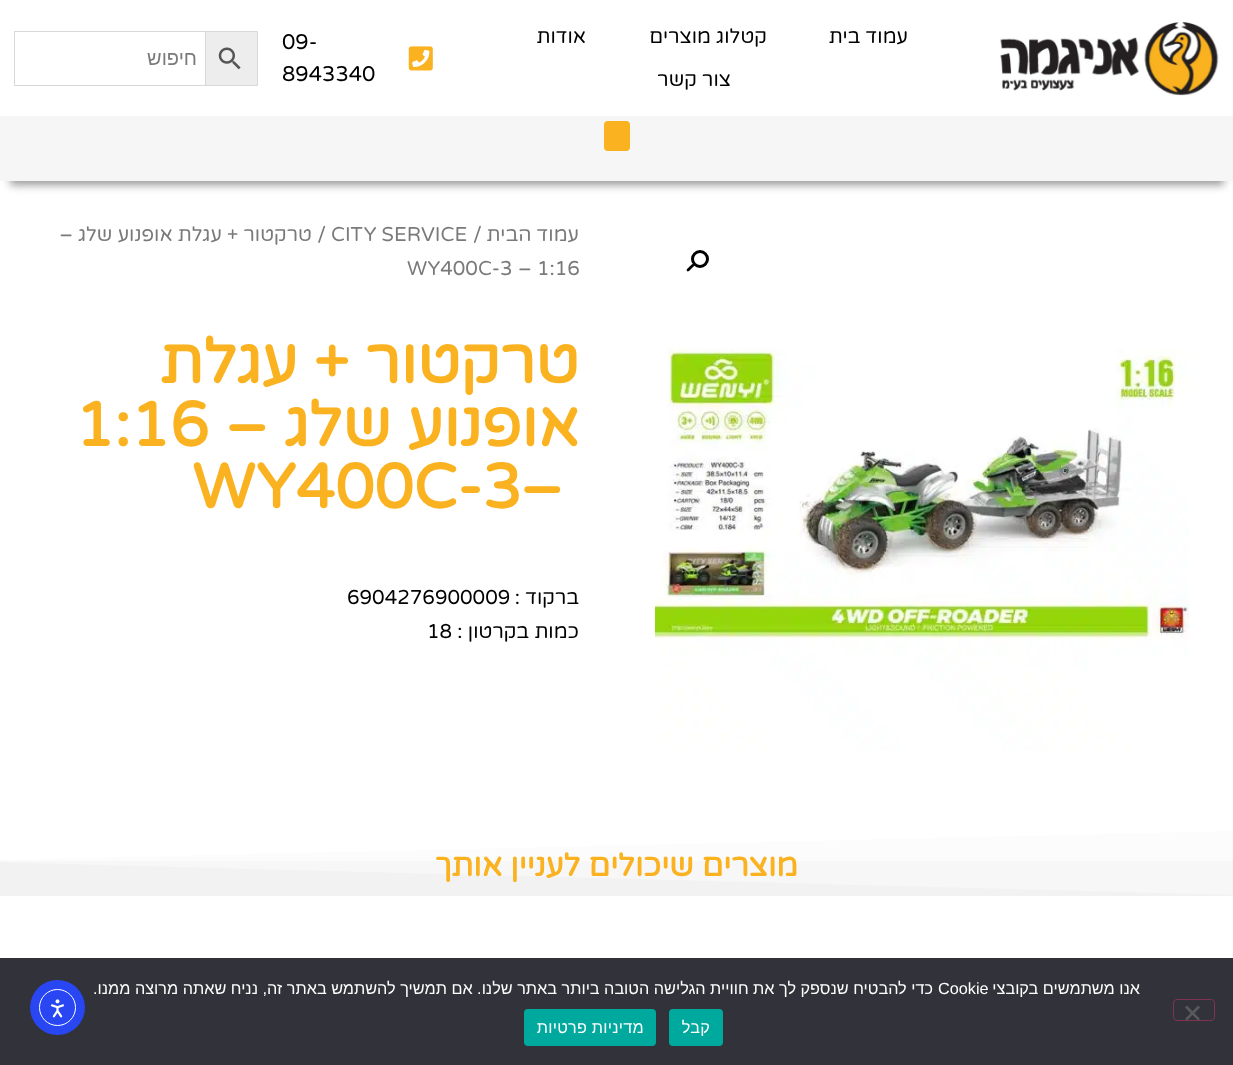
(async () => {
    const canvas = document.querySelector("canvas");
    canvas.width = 1233;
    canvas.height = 1065;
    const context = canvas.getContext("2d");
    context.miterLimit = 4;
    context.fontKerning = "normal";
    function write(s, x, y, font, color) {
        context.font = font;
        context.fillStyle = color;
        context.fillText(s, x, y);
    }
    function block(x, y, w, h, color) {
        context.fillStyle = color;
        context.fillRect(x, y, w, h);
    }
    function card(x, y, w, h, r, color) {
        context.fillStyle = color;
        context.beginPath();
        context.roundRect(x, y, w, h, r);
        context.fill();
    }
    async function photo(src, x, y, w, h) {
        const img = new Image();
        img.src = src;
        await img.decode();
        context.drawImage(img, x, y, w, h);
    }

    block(0, 0, 1233, 1065, "rgb(255, 255, 255)");
    block(0, 861, 1233, 34, "rgb(249, 249, 249)");
    await photo("media/1.png", 1000, 21, 219, 75);
    context.direction = "rtl";
    write("עמוד בית", 908, 43, "20px Varela Round", "rgb(0, 0, 0)");
    write("קטלוג מוצרים", 767, 43, "20px Varela Round", "rgb(0, 0, 0)");
    write("אודות", 586, 43, "20px Varela Round", "rgb(0, 0, 0)");
    write("צור קשר", 731, 86, "20px Varela Round", "rgb(0, 0, 0)");
    await photo("media/2.png", 408, 46, 25, 25);
    context.direction = "ltr";
    write("09-", 282, 49, "21.25px Varela Round", "rgb(0, 0, 0)");
    write("8943340", 282, 81, "21.25px Varela Round", "rgb(0, 0, 0)");
    context.fillStyle = "rgb(237, 237, 237)";
    context.beginPath();
    context.rect(205.5, 31.5, 52, 54);
    context.fill();
    context.strokeStyle = "rgb(216, 216, 216)";
    context.stroke();
    await photo("media/3.png", 218, 47, 23, 23);
    context.strokeRect(14.5, 31.5, 191, 54);
    context.direction = "rtl";
    write("חיפוש", 197, 65, "20px Liberation Sans", "rgb(122, 122, 122)");
    context.fillStyle = "rgba(0, 0, 0, 0.4)";
    context.filter = "blur(4.5px)";
    context.beginPath();
    context.rect(10, 140, 1214, 45);
    context.fill();
    context.filter = "none";
    block(0, 116, 1233, 65, "rgb(247, 246, 246)");
    card(604, 121, 26, 30, 4, "rgb(250, 178, 32)");
    context.beginPath();
    context.arc(700, 259, 7.5, 0, Math.PI * 2);
    context.strokeStyle = "rgb(0, 0, 0)";
    context.lineWidth = 3;
    context.stroke();
    context.fillStyle = "rgb(0, 0, 0)";
    context.beginPath();
    context.moveTo(694, 264);
    context.bezierCurveTo(695.5, 265.5, 692.5, 267.5, 691.5, 268.5);
    context.bezierCurveTo(690.5, 269.5, 688.5, 272.5, 687, 271);
    context.bezierCurveTo(685.5, 269.5, 689, 267.5, 689.5, 266.5);
    context.bezierCurveTo(690.5, 266, 692.5, 262.5, 694, 264);
    context.closePath();
    context.fill();
    await photo("media/4.png", 655, 348, 535, 403);
    write("עמוד הבית", 579, 241, "20px Varela Round", "rgb(122, 122, 122)");
    context.direction = "ltr";
    write("/", 473, 241, "20px Varela Round", "rgb(122, 122, 122)");
    write("CITY SERVICE", 331, 241, "20px Varela Round", "rgb(122, 122, 122)");
    context.direction = "rtl";
    write("/ טרקטור + עגלת אופנוע שלג –", 326, 241, "20px Varela Round", "rgb(122, 122, 122)");
    context.direction = "ltr";
    write("– 1:16", 518, 275, "20px Varela Round", "rgb(122, 122, 122)");
    write("WY400C-3", 407, 275, "20px Varela Round", "rgb(122, 122, 122)");
    context.direction = "rtl";
    write("טרקטור + עגלת", 579, 383, "bold 62.5px Varela Round", "rgb(250, 178, 32)");
    write("אופנוע שלג –", 579, 446, "bold 62.5px Varela Round", "rgb(250, 178, 32)");
    context.direction = "ltr";
    write("1:16", 75, 446, "bold 62.5px Varela Round", "rgb(250, 178, 32)");
    write("–", 520, 508, "bold 62.5px Varela Round", "rgb(250, 178, 32)");
    write("WY400C-3", 192, 508, "bold 62.5px Varela Round", "rgb(250, 178, 32)");
    context.direction = "rtl";
    write("ברקוד :", 579, 604, "20px Varela Round", "rgb(0, 0, 0)");
    context.direction = "ltr";
    write("6904276900009", 347, 604, "20px Varela Round", "rgb(0, 0, 0)");
    context.direction = "rtl";
    write("כמות בקרטון :", 579, 638, "20px Varela Round", "rgb(0, 0, 0)");
    context.direction = "ltr";
    write("18", 427, 638, "20px Varela Round", "rgb(0, 0, 0)");
    context.fillStyle = "rgb(243, 242, 242)";
    context.beginPath();
    context.moveTo(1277, 896);
    context.lineTo(-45, 896);
    context.lineTo(-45, 861);
    context.closePath();
    context.fill();
    context.fillStyle = "rgba(243, 242, 242, 0.25)";
    context.beginPath();
    context.moveTo(-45, 896);
    context.lineTo(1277, 896);
    context.lineTo(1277, 830);
    context.lineTo(-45, 861);
    context.closePath();
    context.fill();
    context.direction = "rtl";
    write("מוצרים שיכולים לעניין אותך", 798, 876, "bold 31.25px Varela Round", "rgb(250, 178, 32)");
    block(0, 958, 1233, 107, "rgb(50, 50, 58)");
    write("אנו משתמשים בקובצי", 1140, 994, "16.25px Liberation Sans", "rgb(255, 255, 255)");
    context.direction = "ltr";
    write("Cookie", 938, 994, "16.25px Liberation Sans", "rgb(255, 255, 255)");
    context.direction = "rtl";
    write("כדי להבטיח שנספק לך את חוויית הגלישה הטובה ביותר באתר שלנו. אם תמשיך להשתמש באתר זה, נניח שאתה מרוצה ממנו.", 933, 994, "16.25px Liberation Sans", "rgb(255, 255, 255)");
    context.beginPath();
    context.roundRect(1173.5, 999.5, 41, 21, 3.5);
    context.strokeStyle = "rgb(127, 51, 80)";
    context.lineWidth = 1;
    context.stroke();
    context.fillStyle = "rgb(89, 89, 93)";
    context.beginPath();
    context.moveTo(1198, 1005.5);
    context.lineTo(1200, 1007.5);
    context.lineTo(1187, 1020.5);
    context.lineTo(1185, 1019);
    context.closePath();
    context.fill();
    context.beginPath();
    context.moveTo(1185, 1007.5);
    context.lineTo(1187, 1005.5);
    context.lineTo(1200, 1019);
    context.lineTo(1198, 1020.5);
    context.closePath();
    context.fill();
    card(669, 1009, 54, 37, 4, "rgb(0, 169, 157)");
    context.letterSpacing = "0.25px";
    write("קבל", 710, 1033, "16.25px Liberation Sans", "rgb(255, 255, 255)");
    card(524, 1009, 132, 37, 4, "rgb(0, 169, 157)");
    write("מדיניות פרטיות", 644, 1033, "16.25px Liberation Sans", "rgb(255, 255, 255)");
    context.fillStyle = "rgb(40, 71, 243)";
    context.beginPath();
    context.arc(57.5, 1007.5, 27.5, 0, Math.PI * 2);
    context.fill();
    context.beginPath();
    context.arc(57.5, 1007.5, 18, 0, Math.PI * 2);
    context.strokeStyle = "rgb(255, 255, 255)";
    context.stroke();
    await photo("media/5.png", 50, 999, 14, 19);
})();
